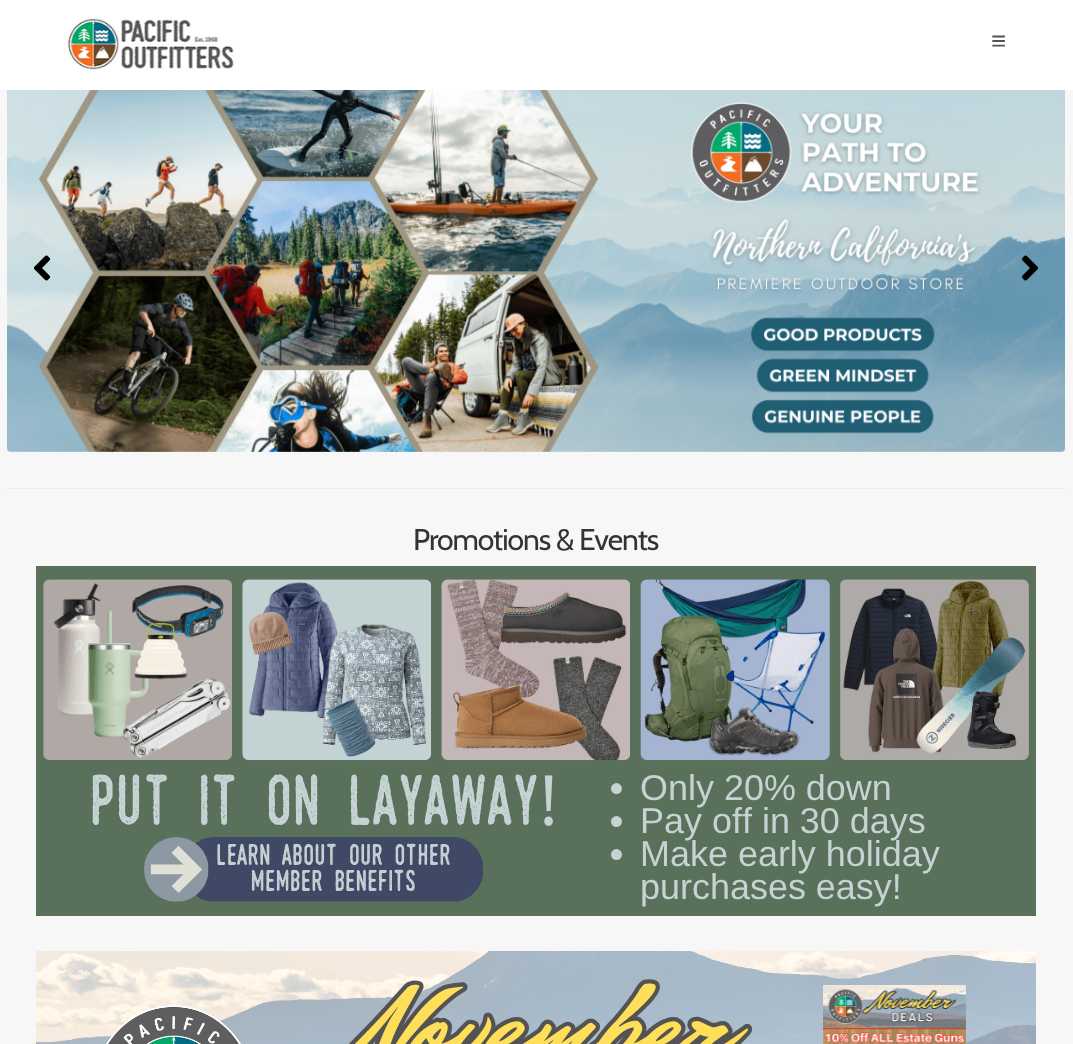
(async () => {
    const canvas = document.querySelector("canvas");
    canvas.width = 1073;
    canvas.height = 1044;
    const context = canvas.getContext("2d");
    context.miterLimit = 4;
    context.fontKerning = "normal";
    function write(s, x, y, font, color) {
        context.font = font;
        context.fillStyle = color;
        context.fillText(s, x, y);
    }
    function block(x, y, w, h, color) {
        context.fillStyle = color;
        context.fillRect(x, y, w, h);
    }
    async function photo(src, x, y, w, h) {
        const img = new Image();
        img.src = src;
        await img.decode();
        context.drawImage(img, x, y, w, h);
    }

    block(0, 0, 1073, 1044, "rgb(247, 247, 247)");
    block(0, 0, 1073, 90, "rgb(255, 255, 255)");
    await photo("media/1.png", 68, 18, 166, 52);
    write("≡", 991, 50, "bold 27px Liberation Serif", "rgb(84, 83, 83)");
    await photo("media/2.png", 7, 90, 1058, 362);
    await photo("media/3.png", 34, 255, 17, 26);
    await photo("media/4.png", 1022, 255, 16, 26);
    block(7, 488, 1058, 1, "rgb(235, 235, 235)");
    context.letterSpacing = "-1px";
    write("Promotions & Events", 413, 550, "30px Cabin", "rgb(51, 51, 51)");
    await photo("media/5.png", 36, 566, 1000, 350);
    await photo("media/6.png", 36, 951, 1000, 93);
})();
